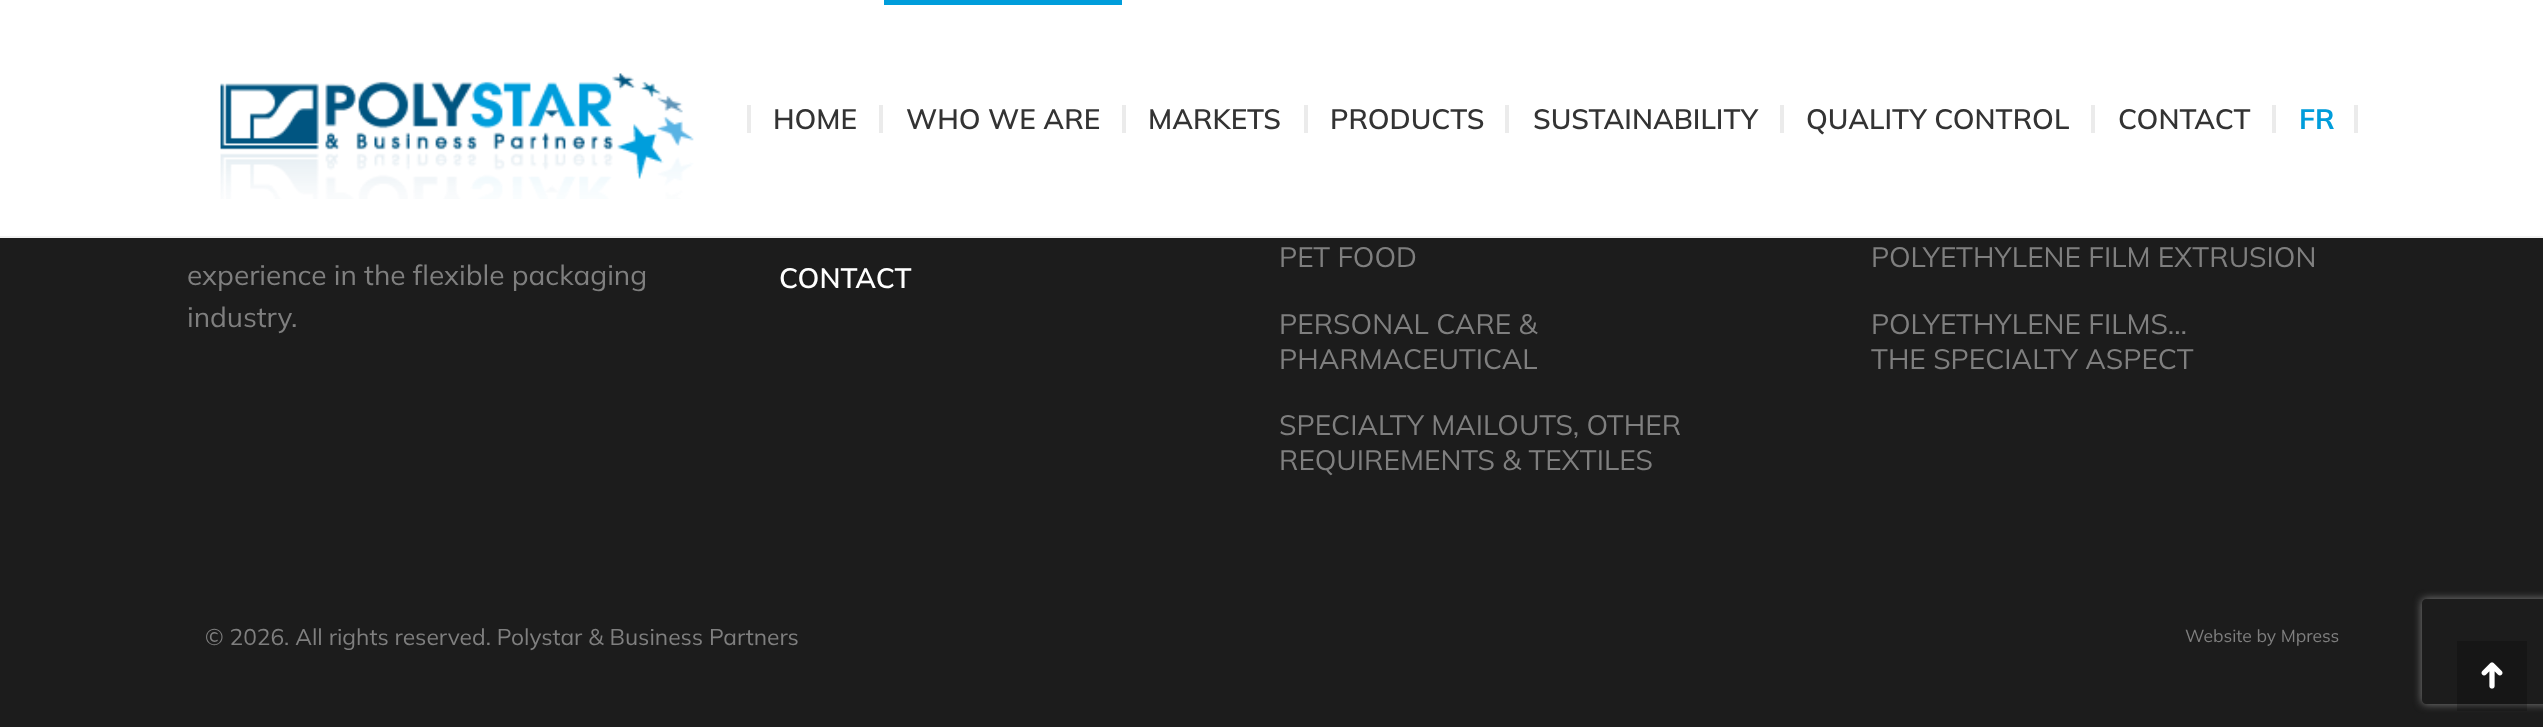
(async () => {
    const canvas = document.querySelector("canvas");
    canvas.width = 2543;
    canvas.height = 727;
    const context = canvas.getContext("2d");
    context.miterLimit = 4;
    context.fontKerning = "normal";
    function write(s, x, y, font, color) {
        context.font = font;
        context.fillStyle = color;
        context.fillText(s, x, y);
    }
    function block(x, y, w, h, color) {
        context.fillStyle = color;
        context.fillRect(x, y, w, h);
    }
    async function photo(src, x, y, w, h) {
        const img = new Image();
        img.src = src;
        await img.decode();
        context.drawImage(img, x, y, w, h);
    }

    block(0, 0, 2543, 727, "rgb(28, 28, 28)");
    block(0, 0, 2543, 236, "rgb(255, 255, 255)");
    block(0, 236, 2543, 2, "rgb(242, 242, 242)");
    await photo("media/1.png", 220, 73, 474, 126);
    block(747, 105, 4, 28, "rgb(235, 235, 235)");
    write("HOME", 773, 129, "600 28px Mulish", "rgb(51, 51, 51)");
    block(879, 105, 4, 28, "rgb(235, 235, 235)");
    block(884, 0, 238, 5, "rgb(0, 157, 219)");
    write("WHO WE ARE", 906, 129, "600 28px Mulish", "rgb(51, 51, 51)");
    block(1122, 105, 4, 28, "rgb(235, 235, 235)");
    write("MARKETS", 1148, 129, "600 28px Mulish", "rgb(51, 51, 51)");
    block(1304, 105, 4, 28, "rgb(235, 235, 235)");
    write("PRODUCTS", 1330, 129, "600 28px Mulish", "rgb(51, 51, 51)");
    block(1505, 105, 4, 28, "rgb(235, 235, 235)");
    write("SUSTAINABILITY", 1533, 129, "600 28px Mulish", "rgb(51, 51, 51)");
    block(1780, 105, 4, 28, "rgb(235, 235, 235)");
    write("QUALITY CONTROL", 1806, 129, "600 28px Mulish", "rgb(51, 51, 51)");
    block(2091, 105, 4, 28, "rgb(235, 235, 235)");
    write("CONTACT", 2118, 129, "600 28px Mulish", "rgb(51, 51, 51)");
    block(2272, 105, 4, 28, "rgb(235, 235, 235)");
    write("FR", 2299, 129, "bold 28px Mulish", "rgb(0, 157, 219)");
    block(2354, 105, 4, 28, "rgb(235, 235, 235)");
    write("experience in the flexible packaging", 187, 285, "28px Mulish", "rgb(127, 127, 127)");
    write("industry.", 187, 327, "28px Mulish", "rgb(127, 127, 127)");
    write("CONTACT", 779, 288, "600 28px Mulish", "rgb(255, 255, 255)");
    write("PET FOOD", 1279, 267, "28px Mulish", "rgb(127, 127, 127)");
    write("PERSONAL CARE &", 1279, 334, "28px Mulish", "rgb(127, 127, 127)");
    write("PHARMACEUTICAL", 1279, 369, "28px Mulish", "rgb(127, 127, 127)");
    write("SPECIALTY MAILOUTS, OTHER", 1279, 435, "28px Mulish", "rgb(127, 127, 127)");
    write("REQUIREMENTS & TEXTILES", 1279, 470, "28px Mulish", "rgb(127, 127, 127)");
    write("POLYETHYLENE FILM EXTRUSION", 1871, 267, "28px Mulish", "rgb(127, 127, 127)");
    write("POLYETHYLENE FILMS…", 1871, 334, "28px Mulish", "rgb(127, 127, 127)");
    write("THE SPECIALTY ASPECT", 1871, 369, "28px Mulish", "rgb(127, 127, 127)");
    write("© 2026. All rights reserved. Polystar & Business Partners", 205, 645, "22.75px Mulish", "rgb(127, 127, 127)");
    write("Website by Mpress", 2185, 642, "17.5px Mulish", "rgb(127, 127, 127)");
    context.save();
    context.beginPath();
    context.moveTo(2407, 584);
    context.lineTo(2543, 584);
    context.lineTo(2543, 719);
    context.lineTo(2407, 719);
    context.closePath();
    context.moveTo(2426, 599);
    context.lineTo(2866, 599);
    context.bezierCurveTo(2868, 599, 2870, 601, 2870, 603);
    context.lineTo(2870, 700);
    context.bezierCurveTo(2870, 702, 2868, 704, 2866, 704);
    context.lineTo(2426, 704);
    context.bezierCurveTo(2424, 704, 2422, 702, 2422, 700);
    context.lineTo(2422, 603);
    context.bezierCurveTo(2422, 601, 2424, 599, 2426, 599);
    context.closePath();
    context.clip("evenodd");
    context.fillStyle = "rgb(128, 128, 128)";
    context.filter = "blur(4.5px)";
    context.beginPath();
    context.roundRect(2422, 599, 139, 105, 4);
    context.fill();
    context.filter = "none";
    context.restore();
    block(2457, 641, 70, 70, "rgba(0, 0, 0, 0.2)");
    await photo("media/2.png", 2481, 662, 22, 27);
})();
